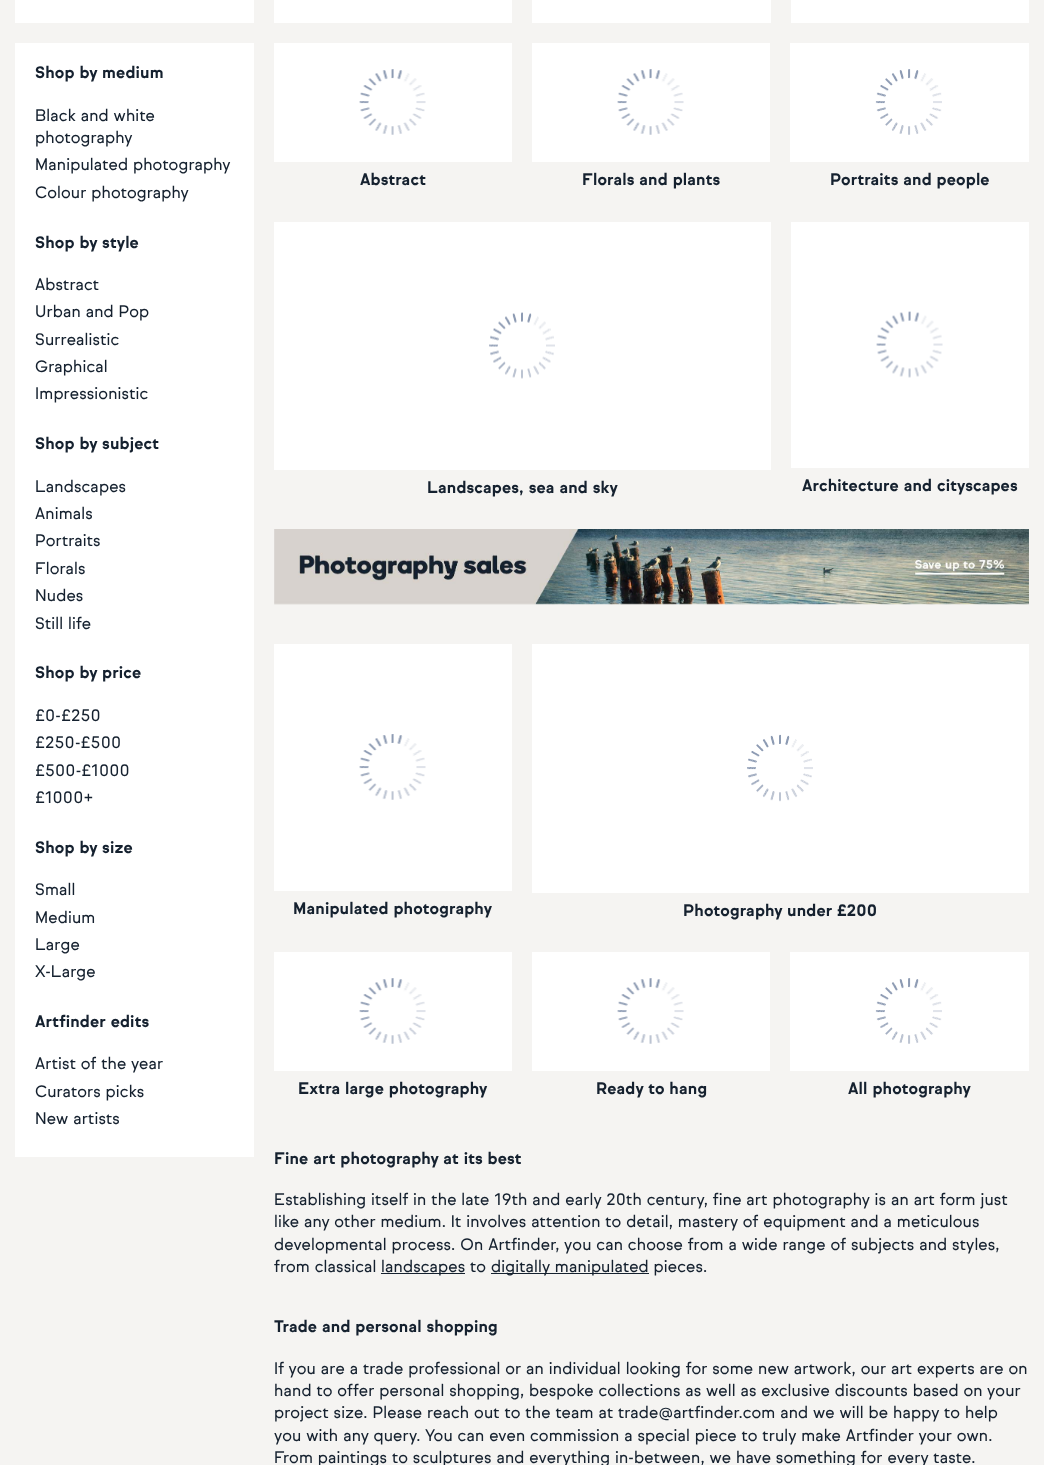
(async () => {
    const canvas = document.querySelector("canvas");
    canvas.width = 1044;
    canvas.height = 1465;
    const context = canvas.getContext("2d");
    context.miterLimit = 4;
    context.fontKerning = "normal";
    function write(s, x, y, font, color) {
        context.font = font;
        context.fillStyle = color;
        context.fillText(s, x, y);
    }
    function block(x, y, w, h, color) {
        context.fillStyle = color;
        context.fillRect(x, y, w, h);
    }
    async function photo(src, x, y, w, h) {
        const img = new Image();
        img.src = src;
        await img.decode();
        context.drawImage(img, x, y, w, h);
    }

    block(0, 0, 1044, 1465, "rgb(245, 244, 242)");
    block(15, 0, 239, 23, "rgb(255, 255, 255)");
    block(274, 0, 238, 23, "rgb(255, 255, 255)");
    block(532, 0, 239, 23, "rgb(255, 255, 255)");
    block(791, 0, 238, 23, "rgb(255, 255, 255)");
    block(15, 43, 239, 1114, "rgb(255, 255, 255)");
    context.letterSpacing = "0.16px";
    write("Shop by medium", 35, 78, "bold 16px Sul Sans", "rgb(21, 33, 47)");
    write("Black and white", 35, 121, "16px Sul Sans", "rgb(21, 33, 47)");
    write("photography", 35, 143, "16px Sul Sans", "rgb(21, 33, 47)");
    write("Manipulated photography", 35, 170, "16px Sul Sans", "rgb(21, 33, 47)");
    write("Colour photography", 35, 198, "16px Sul Sans", "rgb(21, 33, 47)");
    write("Shop by style", 35, 248, "bold 16px Sul Sans", "rgb(21, 33, 47)");
    write("Abstract", 35, 290, "16px Sul Sans", "rgb(21, 33, 47)");
    write("Urban and Pop", 35, 317, "16px Sul Sans", "rgb(21, 33, 47)");
    write("Surrealistic", 35, 345, "16px Sul Sans", "rgb(21, 33, 47)");
    write("Graphical", 35, 372, "16px Sul Sans", "rgb(21, 33, 47)");
    write("Impressionistic", 35, 399, "16px Sul Sans", "rgb(21, 33, 47)");
    write("Shop by subject", 35, 449, "bold 16px Sul Sans", "rgb(21, 33, 47)");
    write("Landscapes", 35, 492, "16px Sul Sans", "rgb(21, 33, 47)");
    write("Animals", 35, 519, "16px Sul Sans", "rgb(21, 33, 47)");
    write("Portraits", 35, 546, "16px Sul Sans", "rgb(21, 33, 47)");
    write("Florals", 35, 574, "16px Sul Sans", "rgb(21, 33, 47)");
    write("Nudes", 35, 601, "16px Sul Sans", "rgb(21, 33, 47)");
    write("Still life", 35, 629, "16px Sul Sans", "rgb(21, 33, 47)");
    write("Shop by price", 35, 678, "bold 16px Sul Sans", "rgb(21, 33, 47)");
    write("£0-£250", 35, 721, "16px Sul Sans", "rgb(21, 33, 47)");
    write("£250-£500", 35, 748, "16px Sul Sans", "rgb(21, 33, 47)");
    write("£500-£1000", 35, 776, "16px Sul Sans", "rgb(21, 33, 47)");
    write("£1000+", 35, 803, "16px Sul Sans", "rgb(21, 33, 47)");
    write("Shop by size", 35, 853, "bold 16px Sul Sans", "rgb(21, 33, 47)");
    write("Small", 35, 895, "16px Sul Sans", "rgb(21, 33, 47)");
    write("Medium", 35, 923, "16px Sul Sans", "rgb(21, 33, 47)");
    write("Large", 35, 950, "16px Sul Sans", "rgb(21, 33, 47)");
    write("X-Large", 35, 977, "16px Sul Sans", "rgb(21, 33, 47)");
    write("Artfinder edits", 35, 1027, "bold 16px Sul Sans", "rgb(21, 33, 47)");
    write("Artist of the year", 35, 1069, "16px Sul Sans", "rgb(21, 33, 47)");
    write("Curators picks", 35, 1097, "16px Sul Sans", "rgb(21, 33, 47)");
    write("New artists", 35, 1124, "16px Sul Sans", "rgb(21, 33, 47)");
    block(274, 43, 238, 119, "rgb(255, 255, 255)");
    await photo("media/1.png", 359, 69, 67, 66);
    write("Abstract", 360, 185, "bold 16px Sul Sans", "rgb(21, 33, 47)");
    block(532, 43, 238, 119, "rgb(255, 255, 255)");
    await photo("media/1.png", 617, 69, 67, 66);
    write("Florals and plants", 582, 185, "bold 16px Sul Sans", "rgb(21, 33, 47)");
    block(790, 43, 239, 119, "rgb(255, 255, 255)");
    await photo("media/2.png", 875, 69, 67, 66);
    write("Portraits and people", 830, 185, "bold 16px Sul Sans", "rgb(21, 33, 47)");
    block(274, 222, 497, 248, "rgb(255, 255, 255)");
    await photo("media/3.png", 489, 312, 66, 67);
    write("Landscapes, sea and sky", 427, 493, "bold 16px Sul Sans", "rgb(21, 33, 47)");
    block(791, 222, 238, 246, "rgb(255, 255, 255)");
    await photo("media/4.png", 876, 311, 67, 67);
    write("Architecture and cityscapes", 802, 491, "bold 16px Sul Sans", "rgb(21, 33, 47)");
    await photo("media/5.png", 274, 529, 755, 76);
    block(274, 644, 238, 247, "rgb(255, 255, 255)");
    await photo("media/6.png", 359, 734, 67, 66);
    write("Manipulated photography", 293, 914, "bold 16px Sul Sans", "rgb(21, 33, 47)");
    block(532, 644, 497, 249, "rgb(255, 255, 255)");
    await photo("media/7.png", 747, 734, 66, 68);
    write("Photography under £200", 683, 916, "bold 16px Sul Sans", "rgb(21, 33, 47)");
    block(274, 952, 238, 119, "rgb(255, 255, 255)");
    await photo("media/1.png", 359, 978, 67, 66);
    write("Extra large photography", 298, 1094, "bold 16px Sul Sans", "rgb(21, 33, 47)");
    block(532, 952, 238, 119, "rgb(255, 255, 255)");
    await photo("media/1.png", 617, 978, 67, 66);
    write("Ready to hang", 596, 1094, "bold 16px Sul Sans", "rgb(21, 33, 47)");
    block(790, 952, 239, 119, "rgb(255, 255, 255)");
    await photo("media/2.png", 875, 978, 67, 66);
    write("All photography", 848, 1094, "bold 16px Sul Sans", "rgb(21, 33, 47)");
    write("Fine art photography at its best", 274, 1164, "bold 16px Sul Sans", "rgb(21, 33, 47)");
    write("Establishing itself in the late 19th and early 20th century, fine art photography is an art form just", 274, 1205, "16px Sul Sans", "rgb(21, 33, 47)");
    write("like any other medium. It involves attention to detail, mastery of equipment and a meticulous", 274, 1227, "16px Sul Sans", "rgb(21, 33, 47)");
    write("developmental process. On Artfinder, you can choose from a wide range of subjects and styles,", 274, 1250, "16px Sul Sans", "rgb(21, 33, 47)");
    write("from classical", 274, 1272, "16px Sul Sans", "rgb(21, 33, 47)");
    block(381, 1273, 84, 1, "rgb(21, 33, 47)");
    write("landscapes to", 381, 1272, "16px Sul Sans", "rgb(21, 33, 47)");
    block(491, 1273, 158, 1, "rgb(21, 33, 47)");
    write("digitally manipulated pieces.", 491, 1272, "16px Sul Sans", "rgb(21, 33, 47)");
    write("Trade and personal shopping", 274, 1332, "bold 16px Sul Sans", "rgb(21, 33, 47)");
    write("If you are a trade professional or an individual looking for some new artwork, our art experts are on", 274, 1374, "16px Sul Sans", "rgb(21, 33, 47)");
    write("hand to offer personal shopping, bespoke collections as well as exclusive discounts based on your", 274, 1396, "16px Sul Sans", "rgb(21, 33, 47)");
    write("project size. Please reach out to the team at trade@artfinder.com and we will be happy to help", 274, 1418, "16px Sul Sans", "rgb(21, 33, 47)");
    write("you with any query. You can even commission a special piece to truly make Artfinder your own.", 274, 1441, "16px Sul Sans", "rgb(21, 33, 47)");
    write("From paintings to sculptures and everything in-between, we have something for every taste.", 274, 1463, "16px Sul Sans", "rgb(21, 33, 47)");
})();
